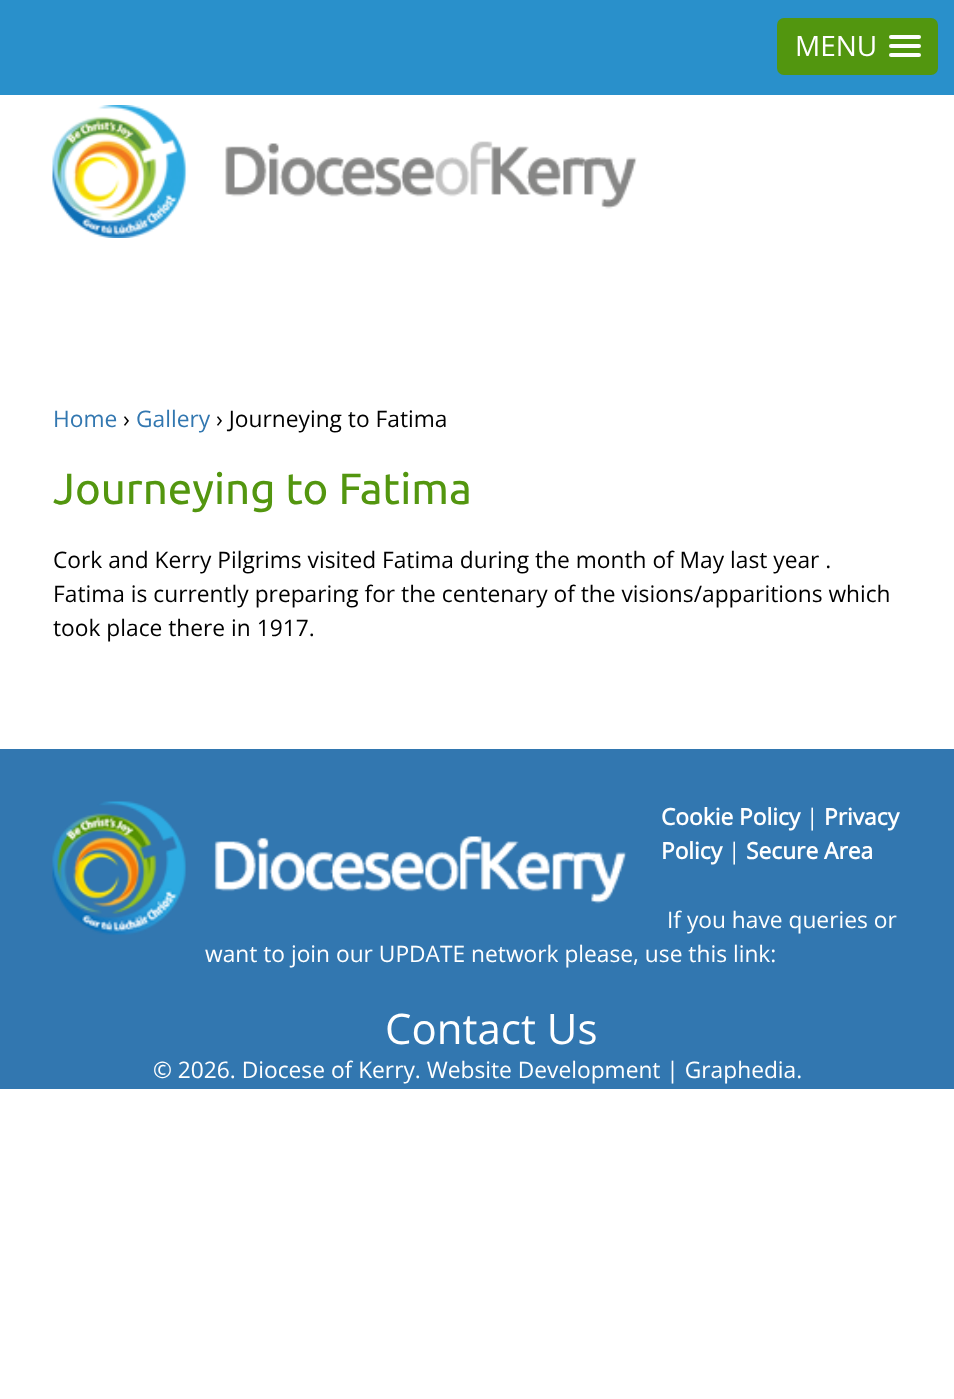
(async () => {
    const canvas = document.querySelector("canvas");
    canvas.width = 954;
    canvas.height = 1399;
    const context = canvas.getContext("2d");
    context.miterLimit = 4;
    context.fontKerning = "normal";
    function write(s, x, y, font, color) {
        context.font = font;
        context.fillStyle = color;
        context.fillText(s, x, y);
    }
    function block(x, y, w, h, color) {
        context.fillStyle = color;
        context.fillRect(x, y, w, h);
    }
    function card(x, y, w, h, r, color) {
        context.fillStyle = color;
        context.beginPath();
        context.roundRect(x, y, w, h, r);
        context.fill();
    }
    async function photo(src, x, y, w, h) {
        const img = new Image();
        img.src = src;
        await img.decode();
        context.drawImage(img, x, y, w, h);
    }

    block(0, 0, 954, 1399, "rgb(255, 255, 255)");
    block(0, 0, 954, 95, "rgb(41, 144, 203)");
    card(777, 18, 161, 57, 7, "rgb(82, 150, 15)");
    write("MENU", 795, 56, "28px Open Sans", "rgb(255, 255, 255)");
    card(889, 35, 32, 4, 2, "rgb(255, 255, 255)");
    card(889, 44, 32, 4, 2, "rgb(255, 255, 255)");
    card(889, 53, 32, 4, 2, "rgb(255, 255, 255)");
    block(0, 749, 954, 340, "rgb(50, 119, 176)");
    await photo("media/1.png", 52, 105, 585, 133);
    write("Home", 53, 427, "22.75px Open Sans", "rgb(50, 119, 176)");
    write("›", 123, 427, "22.75px Open Sans", "rgb(0, 0, 0)");
    write("Gallery", 136, 427, "22.75px Open Sans", "rgb(50, 119, 176)");
    write("› Journeying to Fatima", 216, 427, "22.75px Open Sans", "rgb(0, 0, 0)");
    write("Journeying to Fatima", 53, 504, "43.75px Ubuntu", "rgb(83, 150, 15)");
    write("Cork and Kerry Pilgrims visited Fatima during the month of May last year .", 53, 568, "22.75px Open Sans", "rgb(0, 0, 0)");
    write("Fatima is currently preparing for the centenary of the visions/apparitions which", 53, 602, "22.75px Open Sans", "rgb(0, 0, 0)");
    write("took place there in 1917.", 53, 636, "22.75px Open Sans", "rgb(0, 0, 0)");
    await photo("media/2.png", 52, 801, 575, 134);
    write("Cookie Policy", 661, 825, "bold 22.75px Open Sans", "rgb(255, 255, 255)");
    write("|", 806, 825, "22.75px Open Sans", "rgb(255, 255, 255)");
    write("Privacy", 824, 825, "bold 22.75px Open Sans", "rgb(255, 255, 255)");
    write("Policy", 661, 859, "bold 22.75px Open Sans", "rgb(255, 255, 255)");
    write("|", 728, 859, "22.75px Open Sans", "rgb(255, 255, 255)");
    write("Secure Area", 746, 859, "bold 22.75px Open Sans", "rgb(255, 255, 255)");
    write("If you have queries or", 667, 928, "22.75px Open Sans", "rgb(255, 255, 255)");
    write("want to join our UPDATE network please, use this link:", 205, 962, "22.75px Open Sans", "rgb(255, 255, 255)");
    write("Contact Us", 385, 1044, "42px Open Sans", "rgb(255, 255, 255)");
    write("© 2026. Diocese of Kerry. Website Development | Graphedia.", 153, 1078, "22.75px Open Sans", "rgb(255, 255, 255)");
})();
